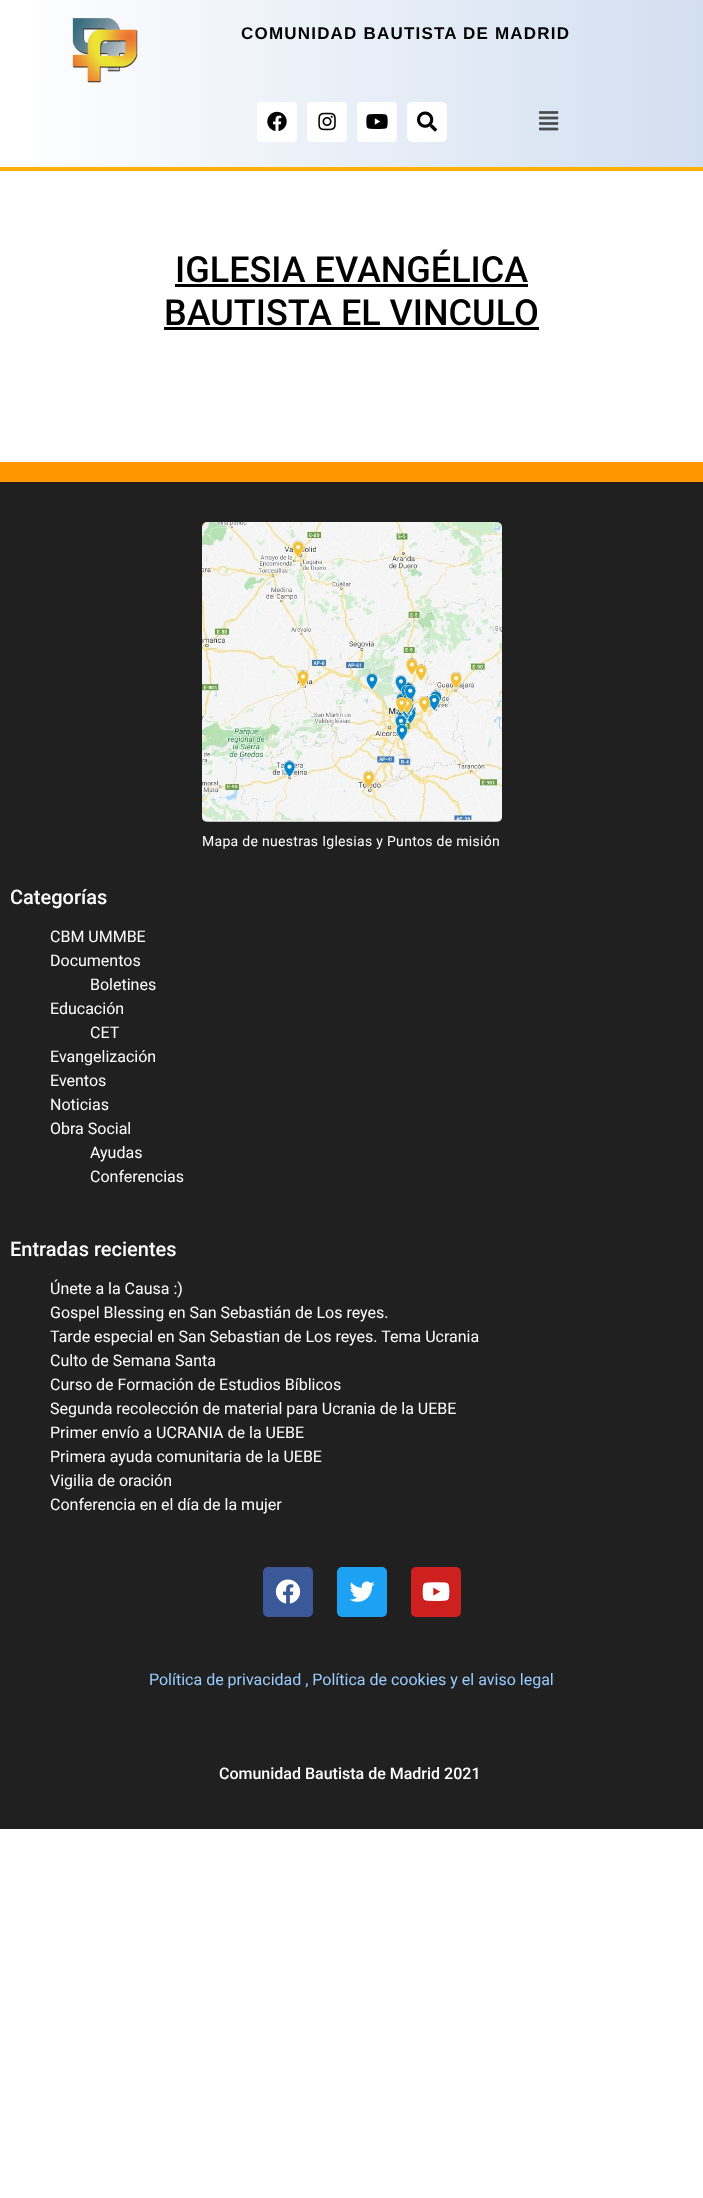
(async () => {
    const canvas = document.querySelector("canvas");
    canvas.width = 703;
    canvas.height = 2198;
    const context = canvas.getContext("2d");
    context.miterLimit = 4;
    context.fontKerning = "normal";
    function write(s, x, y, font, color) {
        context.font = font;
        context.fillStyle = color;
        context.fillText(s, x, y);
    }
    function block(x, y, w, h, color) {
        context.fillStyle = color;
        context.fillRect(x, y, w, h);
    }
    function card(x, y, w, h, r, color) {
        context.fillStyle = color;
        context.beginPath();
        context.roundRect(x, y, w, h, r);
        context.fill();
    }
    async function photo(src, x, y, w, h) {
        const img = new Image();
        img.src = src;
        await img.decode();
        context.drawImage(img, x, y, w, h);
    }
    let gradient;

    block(0, 0, 703, 2198, "rgb(255, 255, 255)");
    gradient = context.createLinearGradient(0, 84, 703, 83);
    gradient.addColorStop(0, "rgb(255, 255, 255)");
    gradient.addColorStop(1, "rgb(210, 223, 240)");
    context.fillStyle = gradient;
    context.fillRect(39, 0, 664, 167);
    block(0, 167, 703, 4, "rgb(255, 176, 0)");
    await photo("media/1.png", 72, 18, 66, 65);
    context.letterSpacing = "1.2px";
    write("COMUNIDAD BAUTISTA DE MADRID", 241, 39, "bold 17px Liberation Sans", "rgb(0, 0, 0)");
    card(257, 102, 40, 40, 4, "rgb(255, 255, 255)");
    await photo("media/2.png", 267, 111, 20, 20);
    card(307, 102, 40, 40, 4, "rgb(255, 255, 255)");
    await photo("media/3.png", 318, 112, 18, 19);
    card(357, 102, 40, 40, 4, "rgb(255, 255, 255)");
    await photo("media/4.png", 366, 114, 22, 15);
    card(407, 102, 40, 40, 5, "rgb(255, 255, 255)");
    await photo("media/5.png", 417, 111, 20, 21);
    await photo("media/6.png", 539, 111, 20, 20);
    context.letterSpacing = "0px";
    write("IGLESIA EVANGÉLICA", 175, 282, "500 36px Roboto", "rgb(0, 0, 0)");
    block(175, 284, 353, 3, "rgb(0, 0, 0)");
    write("BAUTISTA EL VINCULO", 164, 325, "500 36px Roboto", "rgb(0, 0, 0)");
    block(164, 327, 375, 3, "rgb(0, 0, 0)");
    block(0, 482, 703, 1347, "rgb(32, 32, 32)");
    block(0, 462, 703, 20, "rgb(255, 150, 0)");
    await photo("media/7.png", 202, 522, 300, 300);
    context.letterSpacing = "0.3px";
    write("Mapa de nuestras Iglesias y Puntos de misión", 202, 846, "14px Roboto", "rgb(255, 255, 255)");
    context.letterSpacing = "0px";
    write("Categorías", 10, 904, "500 20px Roboto", "rgb(255, 255, 255)");
    write("CBM UMMBE", 50, 942, "16px Roboto", "rgb(255, 255, 255)");
    write("Documentos", 50, 966, "16px Roboto", "rgb(255, 255, 255)");
    write("Boletines", 90, 990, "16px Roboto", "rgb(255, 255, 255)");
    write("Educación", 50, 1014, "16px Roboto", "rgb(255, 255, 255)");
    write("CET", 90, 1038, "16px Roboto", "rgb(255, 255, 255)");
    write("Evangelización", 50, 1062, "16px Roboto", "rgb(255, 255, 255)");
    write("Eventos", 50, 1086, "16px Roboto", "rgb(255, 255, 255)");
    write("Noticias", 50, 1110, "16px Roboto", "rgb(255, 255, 255)");
    write("Obra Social", 50, 1134, "16px Roboto", "rgb(255, 255, 255)");
    write("Ayudas", 90, 1158, "16px Roboto", "rgb(255, 255, 255)");
    write("Conferencias", 90, 1182, "16px Roboto", "rgb(255, 255, 255)");
    write("Entradas recientes", 10, 1256, "500 20px Roboto", "rgb(255, 255, 255)");
    write("Únete a la Causa :)", 50, 1294, "16px Roboto", "rgb(255, 255, 255)");
    write("Gospel Blessing en San Sebastián de Los reyes.", 50, 1318, "16px Roboto", "rgb(255, 255, 255)");
    write("Tarde especial en San Sebastian de Los reyes. Tema Ucrania", 50, 1342, "16px Roboto", "rgb(255, 255, 255)");
    write("Culto de Semana Santa", 50, 1366, "16px Roboto", "rgb(255, 255, 255)");
    write("Curso de Formación de Estudios Bíblicos", 50, 1390, "16px Roboto", "rgb(255, 255, 255)");
    write("Segunda recolección de material para Ucrania de la UEBE", 50, 1414, "16px Roboto", "rgb(255, 255, 255)");
    write("Primer envío a UCRANIA de la UEBE", 50, 1438, "16px Roboto", "rgb(255, 255, 255)");
    write("Primera ayuda comunitaria de la UEBE", 50, 1462, "16px Roboto", "rgb(255, 255, 255)");
    write("Vigilia de oración", 50, 1486, "16px Roboto", "rgb(255, 255, 255)");
    write("Conferencia en el día de la mujer", 50, 1510, "16px Roboto", "rgb(255, 255, 255)");
    card(263, 1567, 50, 50, 5, "rgb(59, 89, 152)");
    await photo("media/8.png", 275, 1579, 26, 25);
    card(337, 1567, 50, 50, 5, "rgb(29, 161, 242)");
    await photo("media/9.png", 349, 1581, 26, 21);
    card(411, 1567, 50, 50, 5, "rgb(205, 32, 31)");
    await photo("media/10.png", 422, 1582, 28, 19);
    write("Política de privacidad , Política de cookies y el aviso legal", 149, 1685, "16px Roboto", "rgb(153, 204, 255)");
    write("Comunidad Bautista de Madrid 2021", 219, 1779, "500 16px Roboto", "rgb(255, 255, 255)");
})();
